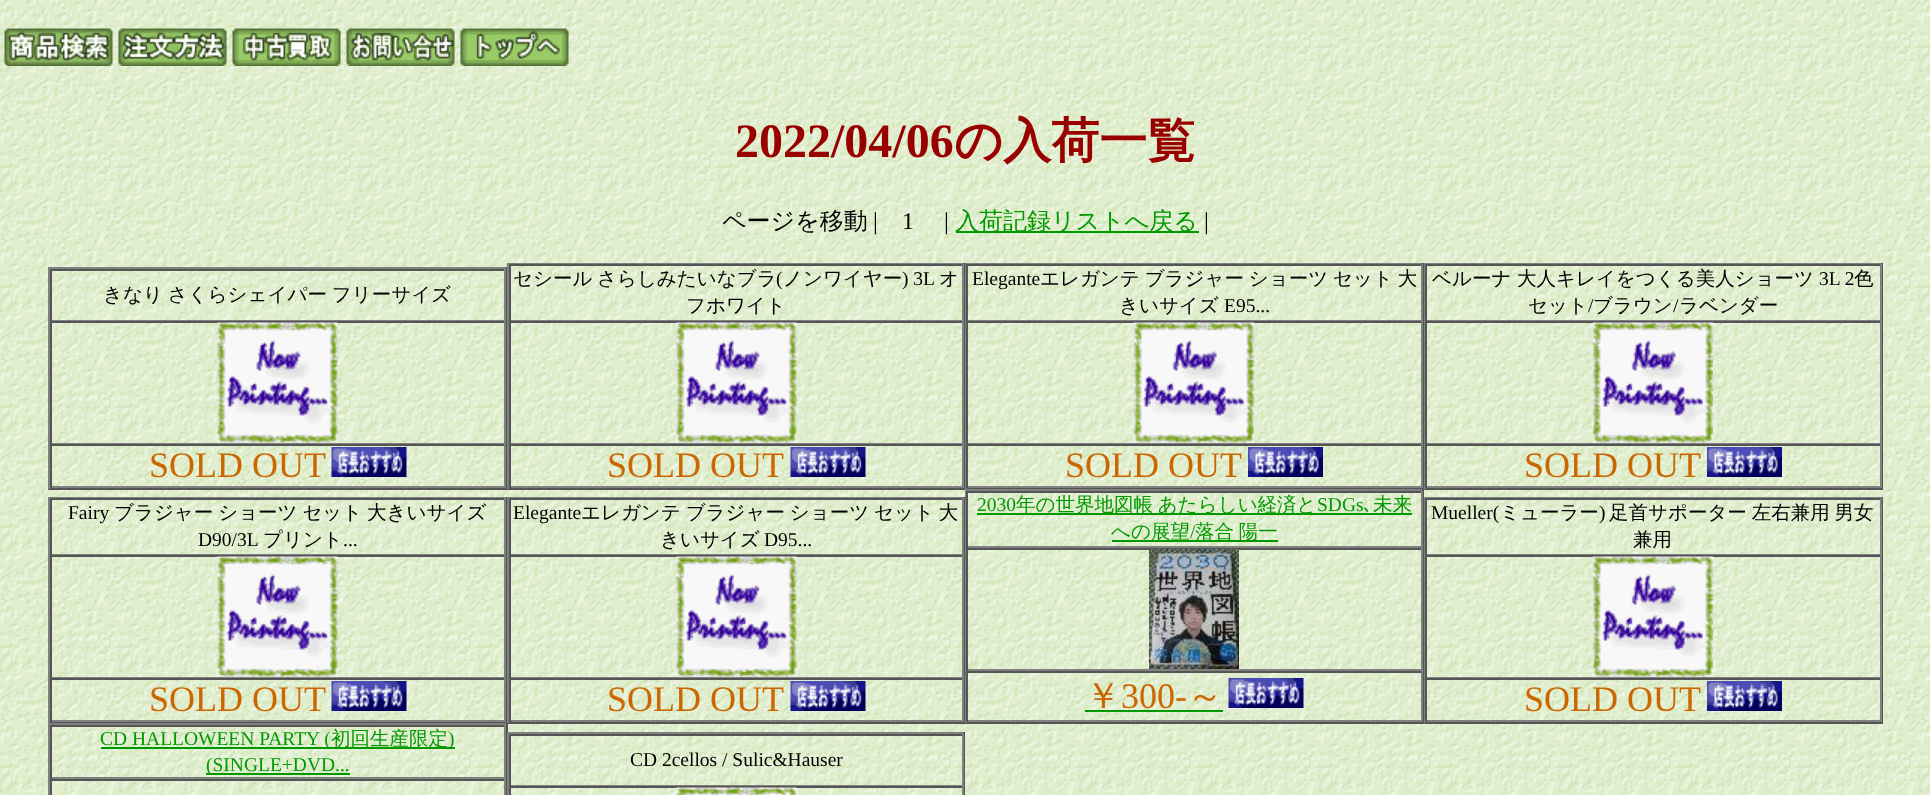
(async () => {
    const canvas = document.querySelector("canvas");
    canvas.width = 1930;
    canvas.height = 795;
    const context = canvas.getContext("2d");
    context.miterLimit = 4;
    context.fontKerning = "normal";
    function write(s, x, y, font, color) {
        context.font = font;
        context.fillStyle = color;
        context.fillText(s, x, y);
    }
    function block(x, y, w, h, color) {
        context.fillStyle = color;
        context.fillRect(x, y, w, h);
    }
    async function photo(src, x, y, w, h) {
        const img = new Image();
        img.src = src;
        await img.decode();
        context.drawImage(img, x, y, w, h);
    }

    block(0, 0, 1930, 795, "rgb(255, 255, 255)");
    await photo("media/1.png", 0, 0, 1930, 795);
    await photo("media/2.png", 4, 28, 109, 38);
    await photo("media/3.png", 118, 28, 109, 38);
    await photo("media/4.png", 232, 28, 109, 38);
    await photo("media/5.png", 346, 28, 109, 38);
    await photo("media/6.png", 460, 28, 109, 38);
    write("2022/04/06", 735, 157, "bold 48px Liberation Serif", "rgb(153, 0, 0)");
    write("の入荷一覧", 954, 157, "bold 48px WenQuanYi Zen Hei", "rgb(153, 0, 0)");
    write("ページを移動", 722, 229, "500 24px WenQuanYi Zen Hei", "rgb(0, 0, 0)");
    write("|", 873, 229, "24px Liberation Serif", "rgb(0, 0, 0)");
    write("1", 902, 229, "24px Liberation Serif", "rgb(0, 0, 0)");
    write("|", 944, 229, "24px Liberation Serif", "rgb(0, 0, 0)");
    block(956, 231, 243, 2, "rgb(0, 153, 0)");
    write("入荷記録リストへ戻る", 955, 229, "500 24px WenQuanYi Zen Hei", "rgb(0, 153, 0)");
    write("|", 1204, 229, "24px Liberation Serif", "rgb(0, 0, 0)");
    block(48, 267, 459, 2, "rgb(128, 128, 128)");
    block(506, 267, 1, 222, "rgb(85, 85, 85)");
    block(48, 488, 459, 2, "rgb(85, 85, 85)");
    block(48, 267, 2, 222, "rgb(128, 128, 128)");
    block(50, 269, 456, 2, "rgb(85, 85, 85)");
    block(504, 269, 2, 52, "rgb(128, 128, 128)");
    block(50, 320, 456, 1, "rgb(128, 128, 128)");
    block(50, 269, 2, 52, "rgb(85, 85, 85)");
    context.wordSpacing = "-1px";
    write("きなり さくらシェイパー フリーサイズ", 103, 301, "500 19.5px WenQuanYi Zen Hei", "rgb(0, 0, 0)");
    block(50, 321, 456, 2, "rgb(85, 85, 85)");
    block(504, 321, 2, 123, "rgb(128, 128, 128)");
    block(50, 443, 456, 1, "rgb(128, 128, 128)");
    block(50, 321, 2, 123, "rgb(85, 85, 85)");
    await photo("media/7.png", 217, 322, 121, 121);
    block(50, 444, 456, 2, "rgb(85, 85, 85)");
    block(504, 444, 2, 44, "rgb(128, 128, 128)");
    block(50, 486, 456, 2, "rgb(128, 128, 128)");
    block(50, 444, 2, 44, "rgb(85, 85, 85)");
    context.wordSpacing = "0px";
    write("SOLD OUT", 149, 477, "36px Liberation Serif", "rgb(204, 102, 0)");
    await photo("media/8.png", 331, 447, 76, 30);
    block(507, 263, 1376, 1, "rgb(128, 128, 128)");
    block(963, 263, 2, 226, "rgb(85, 85, 85)");
    block(507, 488, 458, 2, "rgb(85, 85, 85)");
    block(507, 263, 2, 226, "rgb(128, 128, 128)");
    block(509, 264, 454, 2, "rgb(85, 85, 85)");
    block(962, 264, 2, 57, "rgb(128, 128, 128)");
    block(509, 320, 454, 1, "rgb(128, 128, 128)");
    block(509, 264, 2, 57, "rgb(85, 85, 85)");
    write("セシール", 513, 285, "500 19.5px WenQuanYi Zen Hei", "rgb(0, 0, 0)");
    write("さらしみたいなブラ", 597, 285, "500 19.5px WenQuanYi Zen Hei", "rgb(0, 0, 0)");
    write("(", 776, 285, "19.5px Liberation Serif", "rgb(0, 0, 0)");
    write("ノンワイヤー", 783, 285, "500 19.5px WenQuanYi Zen Hei", "rgb(0, 0, 0)");
    write(") 3L", 902, 285, "19.5px Liberation Serif", "rgb(0, 0, 0)");
    write("オ", 939, 285, "500 19.5px WenQuanYi Zen Hei", "rgb(0, 0, 0)");
    write("フホワイト", 686, 312, "500 19.5px WenQuanYi Zen Hei", "rgb(0, 0, 0)");
    block(509, 321, 454, 2, "rgb(85, 85, 85)");
    block(962, 321, 2, 123, "rgb(128, 128, 128)");
    block(509, 443, 454, 1, "rgb(128, 128, 128)");
    block(509, 321, 2, 123, "rgb(85, 85, 85)");
    await photo("media/9.png", 676, 322, 121, 121);
    block(509, 444, 454, 2, "rgb(85, 85, 85)");
    block(962, 444, 2, 44, "rgb(128, 128, 128)");
    block(509, 486, 454, 2, "rgb(128, 128, 128)");
    block(509, 444, 2, 44, "rgb(85, 85, 85)");
    write("SOLD OUT", 607, 477, "36px Liberation Serif", "rgb(204, 102, 0)");
    await photo("media/10.png", 790, 447, 76, 30);
    block(1422, 263, 2, 226, "rgb(85, 85, 85)");
    block(965, 488, 459, 1, "rgb(85, 85, 85)");
    block(965, 263, 2, 226, "rgb(128, 128, 128)");
    block(966, 264, 456, 2, "rgb(85, 85, 85)");
    block(1421, 264, 2, 57, "rgb(128, 128, 128)");
    block(966, 320, 456, 1, "rgb(128, 128, 128)");
    block(966, 264, 2, 57, "rgb(85, 85, 85)");
    write("Elegante", 972, 285, "19.5px Liberation Serif", "rgb(0, 0, 0)");
    context.wordSpacing = "-1px";
    write("エレガンテ ブラジャー ショーツ セット 大", 1040, 285, "500 19.5px WenQuanYi Zen Hei", "rgb(0, 0, 0)");
    context.wordSpacing = "0px";
    write("きいサイズ", 1119, 312, "500 19.5px WenQuanYi Zen Hei", "rgb(0, 0, 0)");
    write("E95...", 1224, 312, "19.5px Liberation Serif", "rgb(0, 0, 0)");
    block(966, 321, 456, 2, "rgb(85, 85, 85)");
    block(1421, 321, 2, 123, "rgb(128, 128, 128)");
    block(966, 443, 456, 1, "rgb(128, 128, 128)");
    block(966, 321, 2, 123, "rgb(85, 85, 85)");
    await photo("media/11.png", 1134, 322, 120, 121);
    block(966, 444, 456, 2, "rgb(85, 85, 85)");
    block(1421, 444, 2, 44, "rgb(128, 128, 128)");
    block(966, 486, 456, 2, "rgb(128, 128, 128)");
    block(966, 444, 2, 44, "rgb(85, 85, 85)");
    write("SOLD OUT", 1065, 477, "36px Liberation Serif", "rgb(204, 102, 0)");
    await photo("media/12.png", 1248, 447, 75, 30);
    block(1881, 263, 2, 226, "rgb(85, 85, 85)");
    block(1424, 488, 459, 2, "rgb(85, 85, 85)");
    block(1424, 263, 2, 226, "rgb(128, 128, 128)");
    block(1425, 264, 456, 2, "rgb(85, 85, 85)");
    block(1880, 264, 2, 57, "rgb(128, 128, 128)");
    block(1425, 320, 456, 1, "rgb(128, 128, 128)");
    block(1425, 264, 2, 57, "rgb(85, 85, 85)");
    write("ベルーナ", 1432, 285, "500 19.5px WenQuanYi Zen Hei", "rgb(0, 0, 0)");
    write("大人キレイをつくる美人ショーツ", 1517, 285, "500 19.5px WenQuanYi Zen Hei", "rgb(0, 0, 0)");
    write("3L 2", 1819, 285, "19.5px Liberation Serif", "rgb(0, 0, 0)");
    write("色", 1854, 285, "500 19.5px WenQuanYi Zen Hei", "rgb(0, 0, 0)");
    write("セット", 1528, 312, "500 19.5px WenQuanYi Zen Hei", "rgb(0, 0, 0)");
    write("/", 1588, 312, "19.5px Liberation Serif", "rgb(0, 0, 0)");
    write("ブラウン", 1593, 312, "500 19.5px WenQuanYi Zen Hei", "rgb(0, 0, 0)");
    write("/", 1673, 312, "19.5px Liberation Serif", "rgb(0, 0, 0)");
    write("ラベンダー", 1679, 312, "500 19.5px WenQuanYi Zen Hei", "rgb(0, 0, 0)");
    block(1425, 321, 456, 2, "rgb(85, 85, 85)");
    block(1880, 321, 2, 123, "rgb(128, 128, 128)");
    block(1425, 443, 456, 1, "rgb(128, 128, 128)");
    block(1425, 321, 2, 123, "rgb(85, 85, 85)");
    await photo("media/13.png", 1593, 322, 120, 121);
    block(1425, 444, 456, 2, "rgb(85, 85, 85)");
    block(1880, 444, 2, 44, "rgb(128, 128, 128)");
    block(1425, 486, 456, 2, "rgb(128, 128, 128)");
    block(1425, 444, 2, 44, "rgb(85, 85, 85)");
    write("SOLD OUT", 1524, 477, "36px Liberation Serif", "rgb(204, 102, 0)");
    await photo("media/14.png", 1707, 447, 75, 30);
    block(48, 497, 917, 1, "rgb(128, 128, 128)");
    block(506, 497, 1, 226, "rgb(85, 85, 85)");
    block(48, 722, 459, 1, "rgb(85, 85, 85)");
    block(48, 497, 2, 226, "rgb(128, 128, 128)");
    block(50, 498, 456, 2, "rgb(85, 85, 85)");
    block(504, 498, 2, 57, "rgb(128, 128, 128)");
    block(50, 554, 456, 1, "rgb(128, 128, 128)");
    block(50, 498, 2, 57, "rgb(85, 85, 85)");
    write("Fairy", 68, 519, "19.5px Liberation Serif", "rgb(0, 0, 0)");
    context.wordSpacing = "-1px";
    write("ブラジャー ショーツ セット 大きいサイズ", 114, 519, "500 19.5px WenQuanYi Zen Hei", "rgb(0, 0, 0)");
    context.wordSpacing = "0px";
    write("D90/3L", 198, 546, "19.5px Liberation Serif", "rgb(0, 0, 0)");
    write("プリント", 263, 546, "500 19.5px WenQuanYi Zen Hei", "rgb(0, 0, 0)");
    write("...", 343, 546, "19.5px Liberation Serif", "rgb(0, 0, 0)");
    block(50, 555, 456, 2, "rgb(85, 85, 85)");
    block(504, 555, 2, 123, "rgb(128, 128, 128)");
    block(50, 677, 456, 1, "rgb(128, 128, 128)");
    block(50, 555, 2, 123, "rgb(85, 85, 85)");
    await photo("media/15.png", 217, 556, 121, 121);
    block(50, 678, 456, 2, "rgb(85, 85, 85)");
    block(504, 678, 2, 44, "rgb(128, 128, 128)");
    block(50, 720, 456, 2, "rgb(128, 128, 128)");
    block(50, 678, 2, 44, "rgb(85, 85, 85)");
    write("SOLD OUT", 149, 711, "36px Liberation Serif", "rgb(204, 102, 0)");
    await photo("media/16.png", 331, 681, 76, 30);
    block(963, 497, 2, 226, "rgb(85, 85, 85)");
    block(507, 722, 458, 2, "rgb(85, 85, 85)");
    block(507, 497, 2, 226, "rgb(128, 128, 128)");
    block(509, 498, 454, 2, "rgb(85, 85, 85)");
    block(962, 498, 2, 57, "rgb(128, 128, 128)");
    block(509, 554, 454, 1, "rgb(128, 128, 128)");
    block(509, 498, 2, 57, "rgb(85, 85, 85)");
    write("Elegante", 513, 519, "19.5px Liberation Serif", "rgb(0, 0, 0)");
    context.wordSpacing = "-1px";
    write("エレガンテ ブラジャー ショーツ セット 大", 581, 519, "500 19.5px WenQuanYi Zen Hei", "rgb(0, 0, 0)");
    context.wordSpacing = "0px";
    write("きいサイズ", 660, 546, "500 19.5px WenQuanYi Zen Hei", "rgb(0, 0, 0)");
    write("D95...", 764, 546, "19.5px Liberation Serif", "rgb(0, 0, 0)");
    block(509, 555, 454, 2, "rgb(85, 85, 85)");
    block(962, 555, 2, 123, "rgb(128, 128, 128)");
    block(509, 677, 454, 1, "rgb(128, 128, 128)");
    block(509, 555, 2, 123, "rgb(85, 85, 85)");
    await photo("media/17.png", 676, 556, 121, 121);
    block(509, 678, 454, 2, "rgb(85, 85, 85)");
    block(962, 678, 2, 44, "rgb(128, 128, 128)");
    block(509, 720, 454, 2, "rgb(128, 128, 128)");
    block(509, 678, 2, 44, "rgb(85, 85, 85)");
    write("SOLD OUT", 607, 711, "36px Liberation Serif", "rgb(204, 102, 0)");
    await photo("media/18.png", 790, 681, 76, 30);
    block(965, 489, 459, 2, "rgb(128, 128, 128)");
    block(1422, 489, 2, 234, "rgb(85, 85, 85)");
    block(965, 722, 459, 2, "rgb(85, 85, 85)");
    block(965, 489, 2, 234, "rgb(128, 128, 128)");
    block(966, 491, 456, 2, "rgb(85, 85, 85)");
    block(1421, 491, 2, 57, "rgb(128, 128, 128)");
    block(966, 546, 456, 2, "rgb(128, 128, 128)");
    block(966, 491, 2, 57, "rgb(85, 85, 85)");
    write("2030", 977, 511, "19.5px Liberation Serif", "rgb(0, 153, 0)");
    block(977, 513, 435, 2, "rgb(0, 153, 0)");
    context.wordSpacing = "-1px";
    write("年の世界地図帳 あたらしい経済と", 1016, 511, "500 19.5px WenQuanYi Zen Hei", "rgb(0, 153, 0)");
    context.wordSpacing = "0px";
    write("SDGs", 1317, 511, "19.5px Liberation Serif", "rgb(0, 153, 0)");
    write("､", 1363, 511, "19.5px IPAGothic", "rgb(0, 153, 0)");
    write("未来", 1373, 511, "500 19.5px WenQuanYi Zen Hei", "rgb(0, 153, 0)");
    block(1112, 540, 166, 2, "rgb(0, 153, 0)");
    write("への展望", 1111, 538, "500 19.5px WenQuanYi Zen Hei", "rgb(0, 153, 0)");
    write("/", 1190, 538, "19.5px Liberation Serif", "rgb(0, 153, 0)");
    context.wordSpacing = "-1px";
    write("落合 陽一", 1195, 538, "500 19.5px WenQuanYi Zen Hei", "rgb(0, 153, 0)");
    block(966, 548, 456, 2, "rgb(85, 85, 85)");
    block(1421, 548, 2, 123, "rgb(128, 128, 128)");
    block(966, 669, 456, 2, "rgb(128, 128, 128)");
    block(966, 548, 2, 123, "rgb(85, 85, 85)");
    await photo("media/19.png", 1149, 549, 90, 120);
    block(966, 671, 456, 2, "rgb(85, 85, 85)");
    block(1421, 671, 2, 51, "rgb(128, 128, 128)");
    block(966, 720, 456, 2, "rgb(128, 128, 128)");
    block(966, 671, 2, 51, "rgb(85, 85, 85)");
    context.wordSpacing = "0px";
    write("￥", 1085, 708, "500 36px WenQuanYi Zen Hei", "rgb(204, 102, 0)");
    write("300-", 1121, 708, "36px Liberation Serif", "rgb(204, 102, 0)");
    write("～", 1187, 708, "500 36px WenQuanYi Zen Hei", "rgb(204, 102, 0)");
    block(1085, 710, 138, 2, "rgb(0, 153, 0)");
    await photo("media/20.png", 1228, 678, 76, 30);
    block(1424, 497, 459, 1, "rgb(128, 128, 128)");
    block(1881, 497, 2, 226, "rgb(85, 85, 85)");
    block(1424, 722, 459, 2, "rgb(85, 85, 85)");
    block(1424, 497, 2, 226, "rgb(128, 128, 128)");
    block(1425, 498, 456, 2, "rgb(85, 85, 85)");
    block(1880, 498, 2, 57, "rgb(128, 128, 128)");
    block(1425, 554, 456, 1, "rgb(128, 128, 128)");
    block(1425, 498, 2, 57, "rgb(85, 85, 85)");
    write("Mueller(", 1431, 519, "19.5px Liberation Serif", "rgb(0, 0, 0)");
    write("ミューラー", 1500, 519, "500 19.5px WenQuanYi Zen Hei", "rgb(0, 0, 0)");
    write(")", 1599, 519, "19.5px Liberation Serif", "rgb(0, 0, 0)");
    context.wordSpacing = "-1px";
    write("足首サポーター 左右兼用 男女", 1609, 519, "500 19.5px WenQuanYi Zen Hei", "rgb(0, 0, 0)");
    context.wordSpacing = "0px";
    write("兼用", 1633, 546, "500 19.5px WenQuanYi Zen Hei", "rgb(0, 0, 0)");
    block(1425, 555, 456, 2, "rgb(85, 85, 85)");
    block(1880, 555, 2, 123, "rgb(128, 128, 128)");
    block(1425, 677, 456, 1, "rgb(128, 128, 128)");
    block(1425, 555, 2, 123, "rgb(85, 85, 85)");
    await photo("media/21.png", 1593, 556, 120, 121);
    block(1425, 678, 456, 2, "rgb(85, 85, 85)");
    block(1880, 678, 2, 44, "rgb(128, 128, 128)");
    block(1425, 720, 456, 2, "rgb(128, 128, 128)");
    block(1425, 678, 2, 44, "rgb(85, 85, 85)");
    write("SOLD OUT", 1524, 711, "36px Liberation Serif", "rgb(204, 102, 0)");
    await photo("media/14.png", 1707, 681, 75, 30);
    block(48, 723, 459, 2, "rgb(128, 128, 128)");
    block(506, 723, 2, 72, "rgb(85, 85, 85)");
    block(48, 723, 2, 72, "rgb(128, 128, 128)");
    block(50, 725, 456, 2, "rgb(85, 85, 85)");
    block(504, 725, 2, 54, "rgb(128, 128, 128)");
    block(50, 777, 456, 2, "rgb(128, 128, 128)");
    block(50, 725, 2, 54, "rgb(85, 85, 85)");
    block(101, 747, 354, 2, "rgb(0, 153, 0)");
    write("CD HALLOWEEN PARTY (", 100, 745, "19.5px Liberation Serif", "rgb(0, 153, 0)");
    write("初回生産限定", 331, 745, "500 19.5px WenQuanYi Zen Hei", "rgb(0, 153, 0)");
    write(")", 448, 745, "19.5px Liberation Serif", "rgb(0, 153, 0)");
    block(206, 773, 144, 2, "rgb(0, 153, 0)");
    write("(SINGLE+DVD...", 206, 771, "19.5px Liberation Serif", "rgb(0, 153, 0)");
    block(50, 779, 456, 2, "rgb(85, 85, 85)");
    block(504, 779, 2, 16, "rgb(128, 128, 128)");
    block(50, 779, 2, 16, "rgb(85, 85, 85)");
    block(507, 732, 458, 2, "rgb(128, 128, 128)");
    block(963, 732, 2, 63, "rgb(85, 85, 85)");
    block(507, 732, 2, 63, "rgb(128, 128, 128)");
    block(509, 734, 454, 2, "rgb(85, 85, 85)");
    block(962, 734, 2, 52, "rgb(128, 128, 128)");
    block(509, 785, 454, 1, "rgb(128, 128, 128)");
    block(509, 734, 2, 52, "rgb(85, 85, 85)");
    write("CD 2cellos / Sulic&Hauser", 630, 766, "19.5px Liberation Serif", "rgb(0, 0, 0)");
    block(509, 786, 454, 2, "rgb(85, 85, 85)");
    block(962, 786, 2, 9, "rgb(128, 128, 128)");
    block(509, 786, 2, 9, "rgb(85, 85, 85)");
    await photo("media/22.png", 676, 787, 121, 8);
})();
